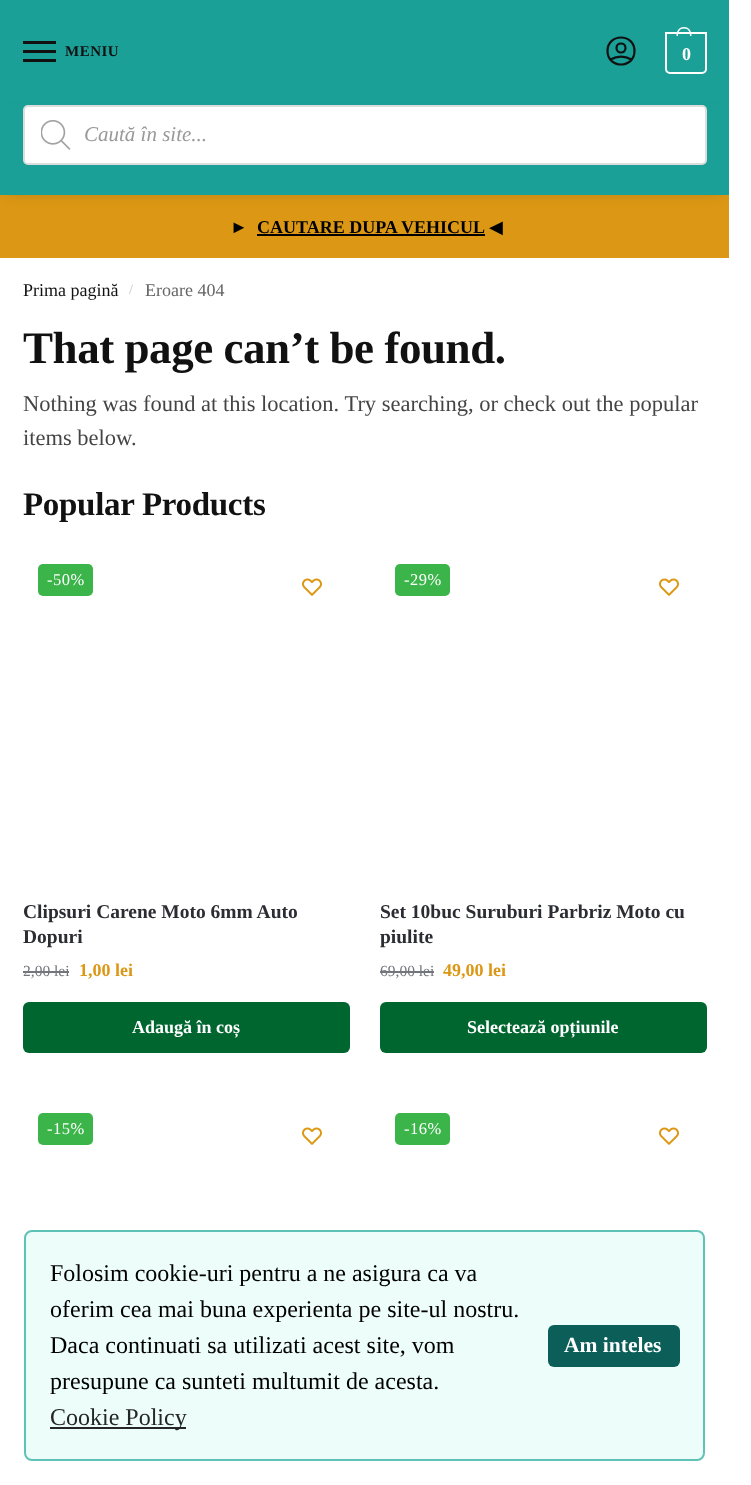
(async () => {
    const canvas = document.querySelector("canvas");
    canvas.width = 751;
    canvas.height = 1485;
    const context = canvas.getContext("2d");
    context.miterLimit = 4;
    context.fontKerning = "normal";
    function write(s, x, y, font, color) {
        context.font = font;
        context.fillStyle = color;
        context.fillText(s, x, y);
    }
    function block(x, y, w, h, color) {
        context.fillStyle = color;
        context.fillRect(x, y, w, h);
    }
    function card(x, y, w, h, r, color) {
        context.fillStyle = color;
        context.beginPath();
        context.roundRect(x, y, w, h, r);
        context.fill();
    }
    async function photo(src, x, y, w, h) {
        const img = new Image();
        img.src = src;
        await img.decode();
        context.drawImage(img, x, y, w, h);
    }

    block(0, 0, 751, 1485, "rgb(255, 255, 255)");
    block(0, 0, 729, 105, "rgb(27, 160, 152)");
    block(23, 41, 33, 3, "rgb(17, 17, 17)");
    block(23, 50, 33, 3, "rgb(17, 17, 17)");
    context.letterSpacing = "0.5px";
    write("MENIU", 65, 56, "bold 15px Liberation Serif", "rgb(17, 17, 17)");
    block(23, 59, 33, 3, "rgb(17, 17, 17)");
    context.beginPath();
    context.moveTo(610.5, 59.5);
    context.bezierCurveTo(617, 56, 625, 56, 631.5, 59.5);
    context.moveTo(625.5, 48);
    context.bezierCurveTo(625.5, 54, 616.5, 54, 616.5, 48);
    context.bezierCurveTo(616.5, 42, 625.5, 42, 625.5, 48);
    context.closePath();
    context.moveTo(634.5, 51);
    context.bezierCurveTo(634.5, 69, 607.5, 69, 607.5, 51);
    context.bezierCurveTo(607.5, 33, 634.5, 33, 634.5, 51);
    context.closePath();
    context.strokeStyle = "rgb(17, 17, 17)";
    context.lineWidth = 2.2;
    context.lineCap = "round";
    context.lineJoin = "round";
    context.stroke();
    context.beginPath();
    context.roundRect(666, 33, 40, 40, [0, 0, 4, 4]);
    context.strokeStyle = "rgb(255, 255, 255)";
    context.lineWidth = 2;
    context.lineJoin = "miter";
    context.stroke();
    context.fillStyle = "rgb(255, 255, 255)";
    context.beginPath();
    context.moveTo(684, 27);
    context.bezierCurveTo(689.5, 27, 691.5, 31.5, 691.5, 36);
    context.lineTo(676.5, 36);
    context.bezierCurveTo(676.5, 31.5, 678.5, 27, 684, 27);
    context.closePath();
    context.moveTo(684, 28.5);
    context.bezierCurveTo(688.5, 28.5, 690, 32, 690, 36);
    context.lineTo(678, 36);
    context.bezierCurveTo(678, 32, 679.5, 28.5, 684, 28.5);
    context.closePath();
    context.fill("evenodd");
    context.letterSpacing = "-1px";
    write("0", 682, 60, "bold 18px Liberation Serif", "rgb(255, 255, 255)");
    block(0, 195, 729, 63, "rgb(220, 152, 20)");
    context.fillStyle = "rgba(0, 0, 0, 0.18)";
    context.filter = "blur(7.5px)";
    context.beginPath();
    context.rect(8, 117, 714, 75);
    context.fill();
    context.filter = "none";
    block(0, 105, 729, 90, "rgb(27, 160, 152)");
    context.fillStyle = "rgb(255, 255, 255)";
    context.beginPath();
    context.roundRect(24, 106, 682, 58, 4);
    context.fill();
    context.strokeStyle = "rgb(221, 221, 221)";
    context.stroke();
    await photo("media/1.png", 41, 120, 30, 30);
    context.letterSpacing = "0px";
    write("Caută în site...", 84, 141, "italic 21px Liberation Serif", "rgb(153, 153, 153)");
    block(729, 114, 5, 81, "rgb(255, 255, 255)");
    write("►", 230, 233, "bold 18px Liberation Serif", "rgb(0, 0, 0)");
    write("CAUTARE DUPA VEHICUL", 257, 233, "bold 18px Liberation Serif", "rgb(0, 0, 0)");
    block(257, 234, 228, 2, "rgb(0, 0, 0)");
    write("◀︎", 489, 233, "18px DejaVu Sans", "rgb(0, 0, 0)");
    write("Prima pagină", 23, 296, "18px Liberation Serif", "rgb(17, 17, 17)");
    write("/", 129, 294, "14px Liberation Serif", "rgb(194, 194, 194)");
    write("Eroare 404", 145, 296, "18px Liberation Serif", "rgb(102, 102, 102)");
    context.letterSpacing = "-0.45px";
    write("That page can’t be found.", 23, 363, "bold 45px Liberation Serif", "rgb(17, 17, 17)");
    context.letterSpacing = "0px";
    write("Nothing was found at this location. Try searching, or check out the popular", 23, 411, "22.5px Liberation Serif", "rgb(68, 68, 68)");
    write("items below.", 23, 445, "22.5px Liberation Serif", "rgb(68, 68, 68)");
    context.letterSpacing = "-0.3px";
    write("Popular Products", 23, 515, "bold 33px Liberation Serif", "rgb(17, 17, 17)");
    card(38, 564, 55, 32, 5, "rgb(59, 181, 74)");
    context.letterSpacing = "0.5px";
    write("-50%", 47, 585, "16.5px Liberation Serif", "rgb(255, 255, 255)");
    await photo("media/2.png", 302, 578, 20, 18);
    context.letterSpacing = "0px";
    write("Clipsuri Carene Moto 6mm Auto", 23, 918, "bold 19.5px Liberation Serif", "rgb(44, 45, 51)");
    write("Dopuri", 23, 943, "bold 19.5px Liberation Serif", "rgb(44, 45, 51)");
    write("2,00 lei", 23, 976, "15.5px Liberation Serif", "rgb(114, 118, 124)");
    block(23, 971, 46, 2, "rgb(114, 118, 124)");
    write("1,00 lei", 79, 976, "bold 18px Liberation Serif", "rgb(220, 152, 20)");
    card(23, 1002, 327, 51, 6, "rgb(0, 102, 48)");
    write("Adaugă în coș", 132, 1033, "bold 18px Liberation Serif", "rgb(255, 255, 255)");
    card(395, 564, 55, 32, 5, "rgb(59, 181, 74)");
    context.letterSpacing = "0.5px";
    write("-29%", 404, 585, "16.5px Liberation Serif", "rgb(255, 255, 255)");
    await photo("media/2.png", 659, 578, 20, 18);
    context.letterSpacing = "0px";
    write("Set 10buc Suruburi Parbriz Moto cu", 380, 918, "bold 19.5px Liberation Serif", "rgb(44, 45, 51)");
    write("piulite", 380, 943, "bold 19.5px Liberation Serif", "rgb(44, 45, 51)");
    write("69,00 lei", 380, 976, "15.5px Liberation Serif", "rgb(114, 118, 124)");
    block(380, 971, 54, 2, "rgb(114, 118, 124)");
    write("49,00 lei", 443, 976, "bold 18px Liberation Serif", "rgb(220, 152, 20)");
    card(380, 1002, 327, 51, 6, "rgb(0, 102, 48)");
    write("Selectează opțiunile", 467, 1033, "bold 18px Liberation Serif", "rgb(255, 255, 255)");
    card(38, 1113, 55, 32, 5, "rgb(59, 181, 74)");
    context.letterSpacing = "0.5px";
    write("-15%", 47, 1134, "16.5px Liberation Serif", "rgb(255, 255, 255)");
    await photo("media/2.png", 302, 1127, 20, 18);
    card(395, 1113, 55, 32, 5, "rgb(59, 181, 74)");
    write("-16%", 404, 1134, "16.5px Liberation Serif", "rgb(255, 255, 255)");
    await photo("media/2.png", 659, 1127, 20, 18);
    context.fillStyle = "rgb(237, 253, 250)";
    context.beginPath();
    context.roundRect(25, 1231, 679, 229, 7);
    context.fill();
    context.strokeStyle = "rgb(94, 194, 182)";
    context.stroke();
    context.letterSpacing = "0px";
    write("Folosim cookie-uri pentru a ne asigura ca va", 50, 1281, "24px Liberation Serif", "rgb(0, 0, 0)");
    write("oferim cea mai buna experienta pe site-ul nostru.", 50, 1317, "24px Liberation Serif", "rgb(0, 0, 0)");
    write("Daca continuati sa utilizati acest site, vom", 50, 1353, "24px Liberation Serif", "rgb(0, 0, 0)");
    write("presupune ca sunteti multumit de acesta.", 50, 1389, "24px Liberation Serif", "rgb(0, 0, 0)");
    block(50, 1427, 136, 2, "rgb(36, 38, 38)");
    write("Cookie Policy", 50, 1425, "24px Liberation Serif", "rgb(36, 38, 38)");
    card(548, 1325, 132, 42, 6, "rgb(12, 95, 89)");
    write("Am inteles", 564, 1352, "bold 21.5px Liberation Serif", "rgb(255, 255, 255)");
})();
